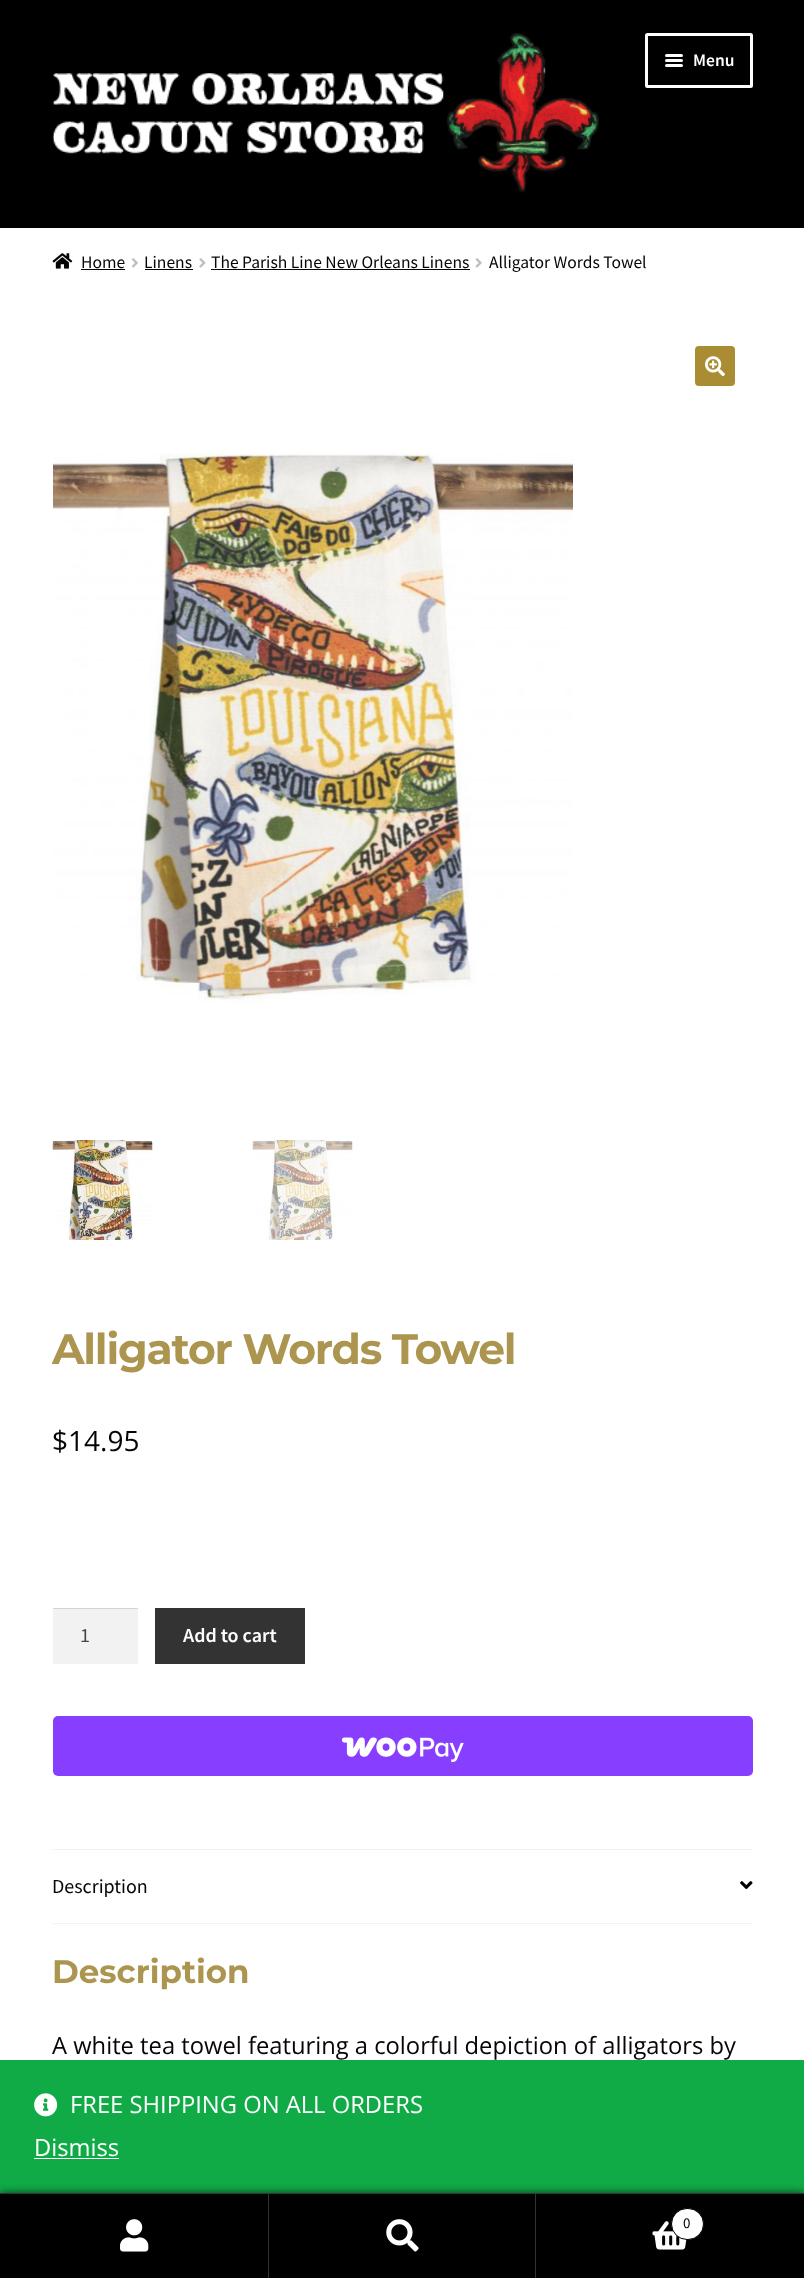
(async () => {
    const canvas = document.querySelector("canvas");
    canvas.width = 804;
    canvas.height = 2278;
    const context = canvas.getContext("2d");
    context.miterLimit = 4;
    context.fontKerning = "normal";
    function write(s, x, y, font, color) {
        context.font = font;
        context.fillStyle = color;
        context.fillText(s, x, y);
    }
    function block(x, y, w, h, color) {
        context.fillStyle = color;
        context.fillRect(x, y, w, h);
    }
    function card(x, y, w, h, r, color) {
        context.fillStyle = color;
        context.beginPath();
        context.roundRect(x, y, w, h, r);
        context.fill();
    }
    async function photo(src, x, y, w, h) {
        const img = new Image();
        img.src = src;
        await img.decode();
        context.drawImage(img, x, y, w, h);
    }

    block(0, 0, 804, 2278, "rgb(255, 255, 255)");
    block(0, 0, 804, 228, "rgb(0, 0, 0)");
    await photo("media/1.png", 52, 33, 547, 160);
    context.beginPath();
    context.roundRect(646.5, 34.5, 105, 52, 1);
    context.strokeStyle = "rgb(255, 255, 255)";
    context.lineWidth = 3;
    context.stroke();
    card(665, 54, 18, 3, 1.5, "rgb(255, 255, 255)");
    card(665, 59, 18, 3, 1.5, "rgb(255, 255, 255)");
    write("Menu", 693, 66, "600 17.5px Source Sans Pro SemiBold", "rgb(255, 255, 255)");
    card(665, 64, 18, 3, 1.5, "rgb(255, 255, 255)");
    await photo("media/2.png", 52, 253, 21, 16);
    write("Home", 81, 268, "17.5px Source Sans Pro", "rgb(5, 5, 5)");
    block(81, 269, 44, 1, "rgb(5, 5, 5)");
    await photo("media/3.png", 132, 258, 6, 10);
    write("Linens", 144, 268, "17.5px Source Sans Pro", "rgb(5, 5, 5)");
    block(145, 269, 48, 1, "rgb(5, 5, 5)");
    await photo("media/4.png", 199, 258, 7, 10);
    write("The Parish Line New Orleans Linens", 211, 268, "17.5px Source Sans Pro", "rgb(5, 5, 5)");
    block(211, 269, 259, 1, "rgb(5, 5, 5)");
    await photo("media/5.png", 475, 258, 7, 10);
    write("Alligator Words Towel", 489, 268, "17.5px Source Sans Pro", "rgb(5, 5, 5)");
    card(695, 346, 40, 40, 4, "rgb(170, 140, 51)");
    await photo("media/6.png", 705, 356, 20, 21);
    await photo("media/7.png", 53, 453, 520, 552);
    await photo("media/8.png", 52, 1140, 101, 100);
    await photo("media/9.png", 252, 1140, 101, 100);
    context.letterSpacing = "-1.25px";
    write("Alligator Words Towel", 52, 1364, "bold 42.5px Montserrat", "rgb(172, 149, 79)");
    context.letterSpacing = "0px";
    write("$14.95", 52, 1451, "28px Open Sans", "rgb(5, 5, 5)");
    block(53, 1609, 85, 55, "rgb(242, 242, 242)");
    block(53, 1608, 85, 1, "rgb(212, 212, 212)");
    write("1", 80, 1642, "20px Source Sans Pro", "rgb(67, 69, 75)");
    block(155, 1608, 150, 56, "rgb(51, 51, 51)");
    write("Add to cart", 183, 1642, "600 20px Source Sans Pro SemiBold", "rgb(255, 255, 255)");
    card(53, 1716, 700, 60, 5, "rgb(135, 62, 255)");
    await photo("media/10.png", 342, 1737, 122, 25);
    block(53, 1849, 700, 1, "rgb(242, 242, 242)");
    block(53, 1923, 700, 1, "rgb(242, 242, 242)");
    write("Description", 52, 1893, "20px Source Sans Pro", "rgb(5, 5, 5)");
    await photo("media/11.png", 740, 1881, 13, 9);
    write("Description", 52, 1983, "bold 32.5px Montserrat", "rgb(172, 149, 79)");
    write("A white tea towel featuring a colorful depiction of alligators by", 52, 2054, "23.75px Open Sans", "rgb(5, 5, 5)");
    block(0, 2060, 804, 133, "rgb(16, 171, 71)");
    context.fillStyle = "rgba(0, 0, 0, 0.7)";
    context.filter = "blur(4px)";
    context.beginPath();
    context.rect(0, 2193, 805, 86);
    context.fill();
    context.filter = "none";
    block(0, 2193, 804, 1, "rgb(51, 51, 51)");
    block(0, 2194, 268, 84, "rgb(0, 0, 0)");
    block(268, 2194, 1, 84, "rgb(51, 51, 51)");
    await photo("media/12.png", 120, 2219, 29, 33);
    block(269, 2194, 266, 84, "rgb(0, 0, 0)");
    block(535, 2194, 1, 84, "rgb(51, 51, 51)");
    await photo("media/13.png", 386, 2219, 33, 33);
    block(536, 2194, 268, 84, "rgb(0, 0, 0)");
    await photo("media/14.png", 652, 2221, 35, 29);
    context.fillStyle = "rgb(255, 255, 255)";
    context.beginPath();
    context.roundRect(671.5, 2208.5, 32, 31, 15.5);
    context.fill();
    context.strokeStyle = "rgb(0, 0, 0)";
    context.lineWidth = 1;
    context.stroke();
    write("0", 683, 2228, "15px Source Sans Pro", "rgb(5, 5, 5)");
    await photo("media/15.png", 34, 2093, 24, 24);
    write("FREE SHIPPING ON ALL ORDERS", 70, 2113, "23.75px Open Sans", "rgb(255, 255, 255)");
    write("Dismiss", 34, 2156, "23.75px Open Sans", "rgb(255, 255, 255)");
    block(34, 2158, 85, 1, "rgb(255, 255, 255)");
})();
